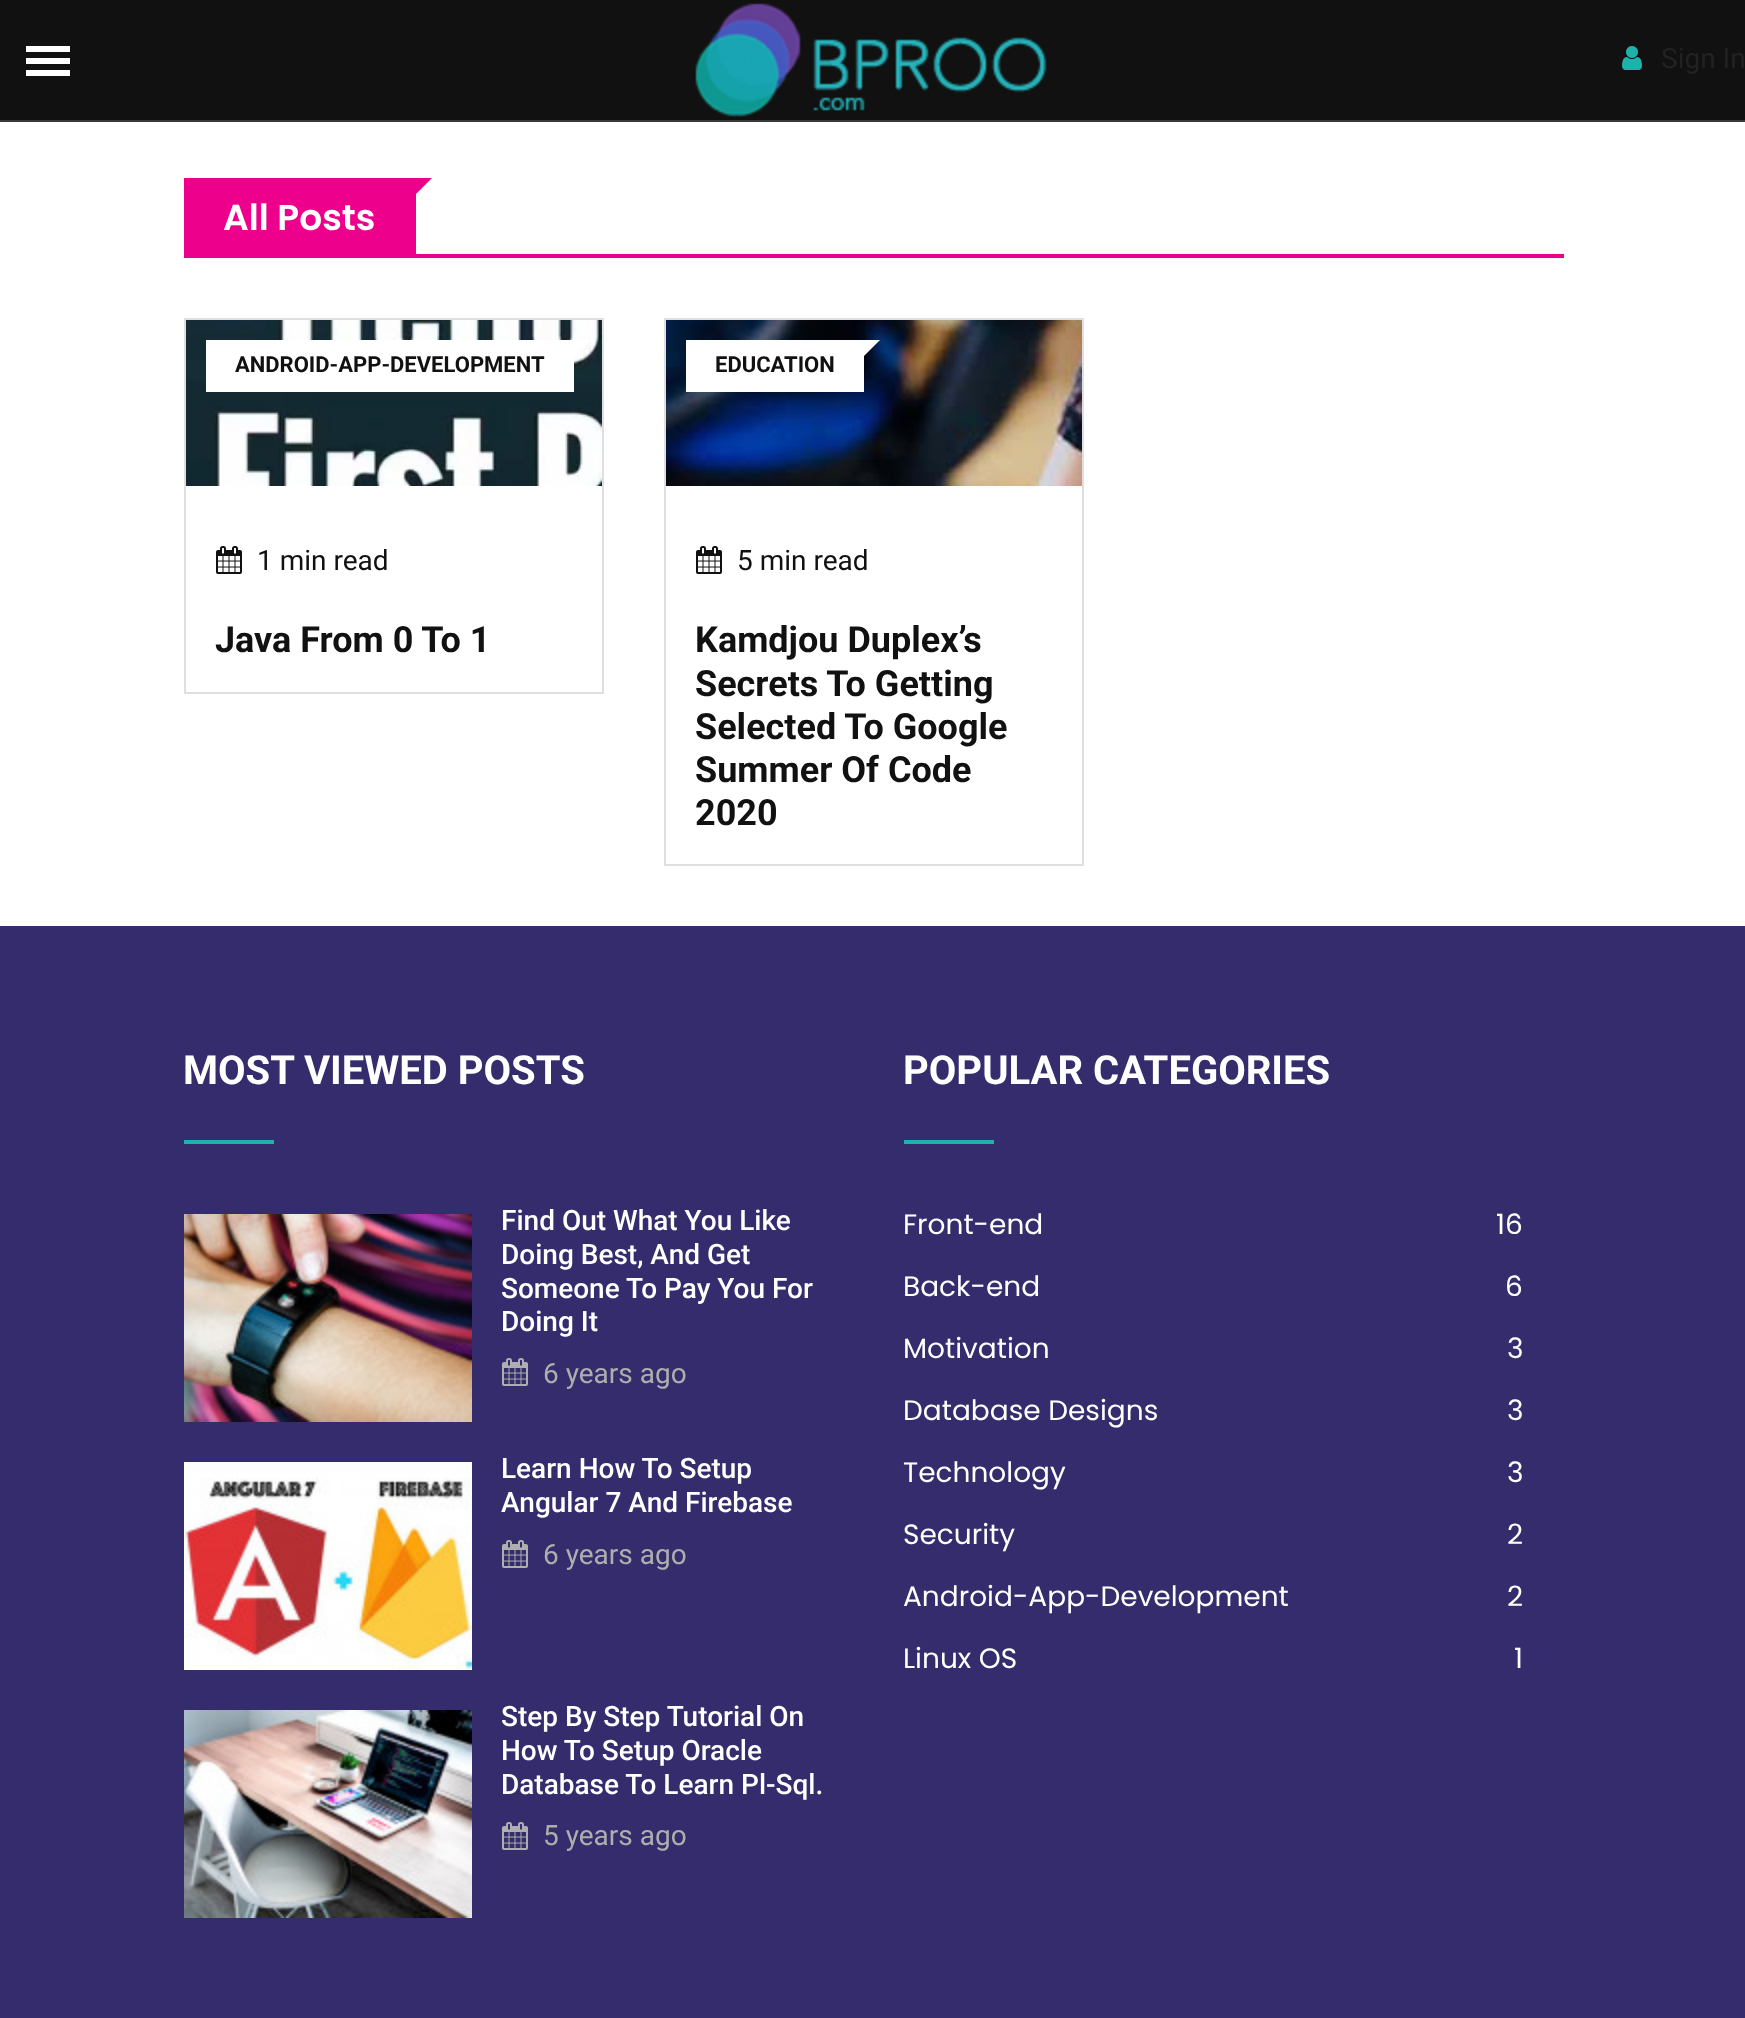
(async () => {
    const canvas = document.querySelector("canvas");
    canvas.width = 1745;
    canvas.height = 2018;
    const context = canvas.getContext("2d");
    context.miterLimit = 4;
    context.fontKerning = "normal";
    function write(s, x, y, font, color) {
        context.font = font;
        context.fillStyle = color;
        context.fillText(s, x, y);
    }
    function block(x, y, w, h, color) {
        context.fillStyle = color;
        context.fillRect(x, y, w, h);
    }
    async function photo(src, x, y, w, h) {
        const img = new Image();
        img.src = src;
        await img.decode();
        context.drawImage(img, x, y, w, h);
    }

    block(0, 0, 1745, 2018, "rgb(255, 255, 255)");
    block(0, 120, 1745, 2, "rgb(58, 58, 58)");
    block(0, 0, 1745, 120, "rgb(17, 17, 17)");
    await photo("media/1.png", 695, 3, 352, 114);
    block(26, 46, 44, 6, "rgb(255, 255, 255)");
    block(26, 58, 44, 6, "rgb(255, 255, 255)");
    block(26, 70, 44, 6, "rgb(255, 255, 255)");
    await photo("media/2.png", 1622, 46, 20, 24);
    write("Sign In", 1661, 68, "28px Roboto", "rgb(34, 34, 34)");
    block(184, 178, 232, 76, "rgb(236, 0, 140)");
    context.beginPath();
    context.moveTo(416, 178);
    context.lineTo(432, 178);
    context.lineTo(416, 194);
    context.closePath();
    context.fill();
    write("All Posts", 223, 230, "600 36px Poppins", "rgb(255, 255, 255)");
    block(184, 254, 1380, 4, "rgb(236, 0, 140)");
    context.strokeStyle = "rgb(223, 223, 223)";
    context.lineWidth = 2;
    context.strokeRect(185, 319, 418, 374);
    await photo("media/3.png", 186, 320, 416, 166);
    block(206, 340, 368, 52, "rgb(255, 255, 255)");
    context.beginPath();
    context.moveTo(574, 340);
    context.lineTo(590, 340);
    context.lineTo(574, 356);
    context.closePath();
    context.fill();
    write("ANDROID-APP-DEVELOPMENT", 235, 372, "bold 22px Roboto", "rgb(17, 17, 17)");
    await photo("media/4.png", 216, 546, 26, 28);
    write("1 min read", 257, 570, "28px Roboto", "rgb(17, 17, 17)");
    write("Java From 0 To 1", 215, 652, "bold 36px Roboto", "rgb(17, 17, 17)");
    context.strokeRect(665, 319, 418, 546);
    await photo("media/5.png", 666, 320, 416, 166);
    block(686, 340, 178, 52, "rgb(255, 255, 255)");
    context.beginPath();
    context.moveTo(864, 340);
    context.lineTo(880, 340);
    context.lineTo(864, 356);
    context.closePath();
    context.fill();
    write("EDUCATION", 715, 372, "bold 22px Roboto", "rgb(17, 17, 17)");
    await photo("media/4.png", 696, 546, 26, 28);
    write("5 min read", 737, 570, "28px Roboto", "rgb(17, 17, 17)");
    write("Kamdjou Duplex’s", 695, 652, "bold 36px Roboto", "rgb(17, 17, 17)");
    write("Secrets To Getting", 695, 696, "bold 36px Roboto", "rgb(17, 17, 17)");
    write("Selected To Google", 695, 739, "bold 36px Roboto", "rgb(17, 17, 17)");
    write("Summer Of Code", 695, 782, "bold 36px Roboto", "rgb(17, 17, 17)");
    write("2020", 695, 825, "bold 36px Roboto", "rgb(17, 17, 17)");
    block(0, 926, 1745, 1092, "rgb(52, 44, 108)");
    write("MOST VIEWED POSTS", 183, 1084, "bold 40px Roboto", "rgb(255, 255, 255)");
    block(184, 1140, 90, 4, "rgb(32, 178, 170)");
    await photo("media/6.png", 184, 1214, 288, 208);
    write("Find Out What You Like", 501, 1230, "500 28px Roboto", "rgb(255, 255, 255)");
    write("Doing Best, And Get", 501, 1264, "500 28px Roboto", "rgb(255, 255, 255)");
    write("Someone To Pay You For", 501, 1298, "500 28px Roboto", "rgb(255, 255, 255)");
    write("Doing It", 501, 1331, "500 28px Roboto", "rgb(255, 255, 255)");
    await photo("media/7.png", 502, 1358, 26, 28);
    write("6 years ago", 543, 1383, "28px Roboto", "rgb(174, 174, 174)");
    await photo("media/8.png", 184, 1462, 288, 208);
    write("Learn How To Setup", 501, 1478, "500 28px Roboto", "rgb(255, 255, 255)");
    write("Angular 7 And Firebase", 501, 1512, "500 28px Roboto", "rgb(255, 255, 255)");
    await photo("media/7.png", 502, 1540, 26, 28);
    write("6 years ago", 543, 1564, "28px Roboto", "rgb(174, 174, 174)");
    await photo("media/9.png", 184, 1710, 288, 208);
    write("Step By Step Tutorial On", 501, 1726, "500 28px Roboto", "rgb(255, 255, 255)");
    write("How To Setup Oracle", 501, 1760, "500 28px Roboto", "rgb(255, 255, 255)");
    write("Database To Learn Pl-Sql.", 501, 1794, "500 28px Roboto", "rgb(255, 255, 255)");
    await photo("media/7.png", 502, 1822, 26, 28);
    write("5 years ago", 543, 1845, "28px Roboto", "rgb(174, 174, 174)");
    write("POPULAR CATEGORIES", 903, 1084, "bold 40px Roboto", "rgb(255, 255, 255)");
    block(904, 1140, 90, 4, "rgb(32, 178, 170)");
    write("Front-end", 903, 1234, "28px Poppins", "rgb(255, 255, 255)");
    write("16", 1496, 1234, "28px Poppins", "rgb(255, 255, 255)");
    write("Back-end", 903, 1296, "28px Poppins", "rgb(255, 255, 255)");
    write("6", 1505, 1296, "28px Poppins", "rgb(255, 255, 255)");
    write("Motivation", 903, 1358, "28px Poppins", "rgb(255, 255, 255)");
    write("3", 1507, 1358, "28px Poppins", "rgb(255, 255, 255)");
    write("Database Designs", 903, 1420, "28px Poppins", "rgb(255, 255, 255)");
    write("3", 1507, 1420, "28px Poppins", "rgb(255, 255, 255)");
    write("Technology", 903, 1482, "28px Poppins", "rgb(255, 255, 255)");
    write("3", 1507, 1482, "28px Poppins", "rgb(255, 255, 255)");
    write("Security", 903, 1544, "28px Poppins", "rgb(255, 255, 255)");
    write("2", 1507, 1544, "28px Poppins", "rgb(255, 255, 255)");
    write("Android-App-Development", 903, 1606, "28px Poppins", "rgb(255, 255, 255)");
    write("2", 1507, 1606, "28px Poppins", "rgb(255, 255, 255)");
    write("Linux OS", 903, 1668, "28px Poppins", "rgb(255, 255, 255)");
    write("1", 1514, 1668, "28px Poppins", "rgb(255, 255, 255)");
})();
